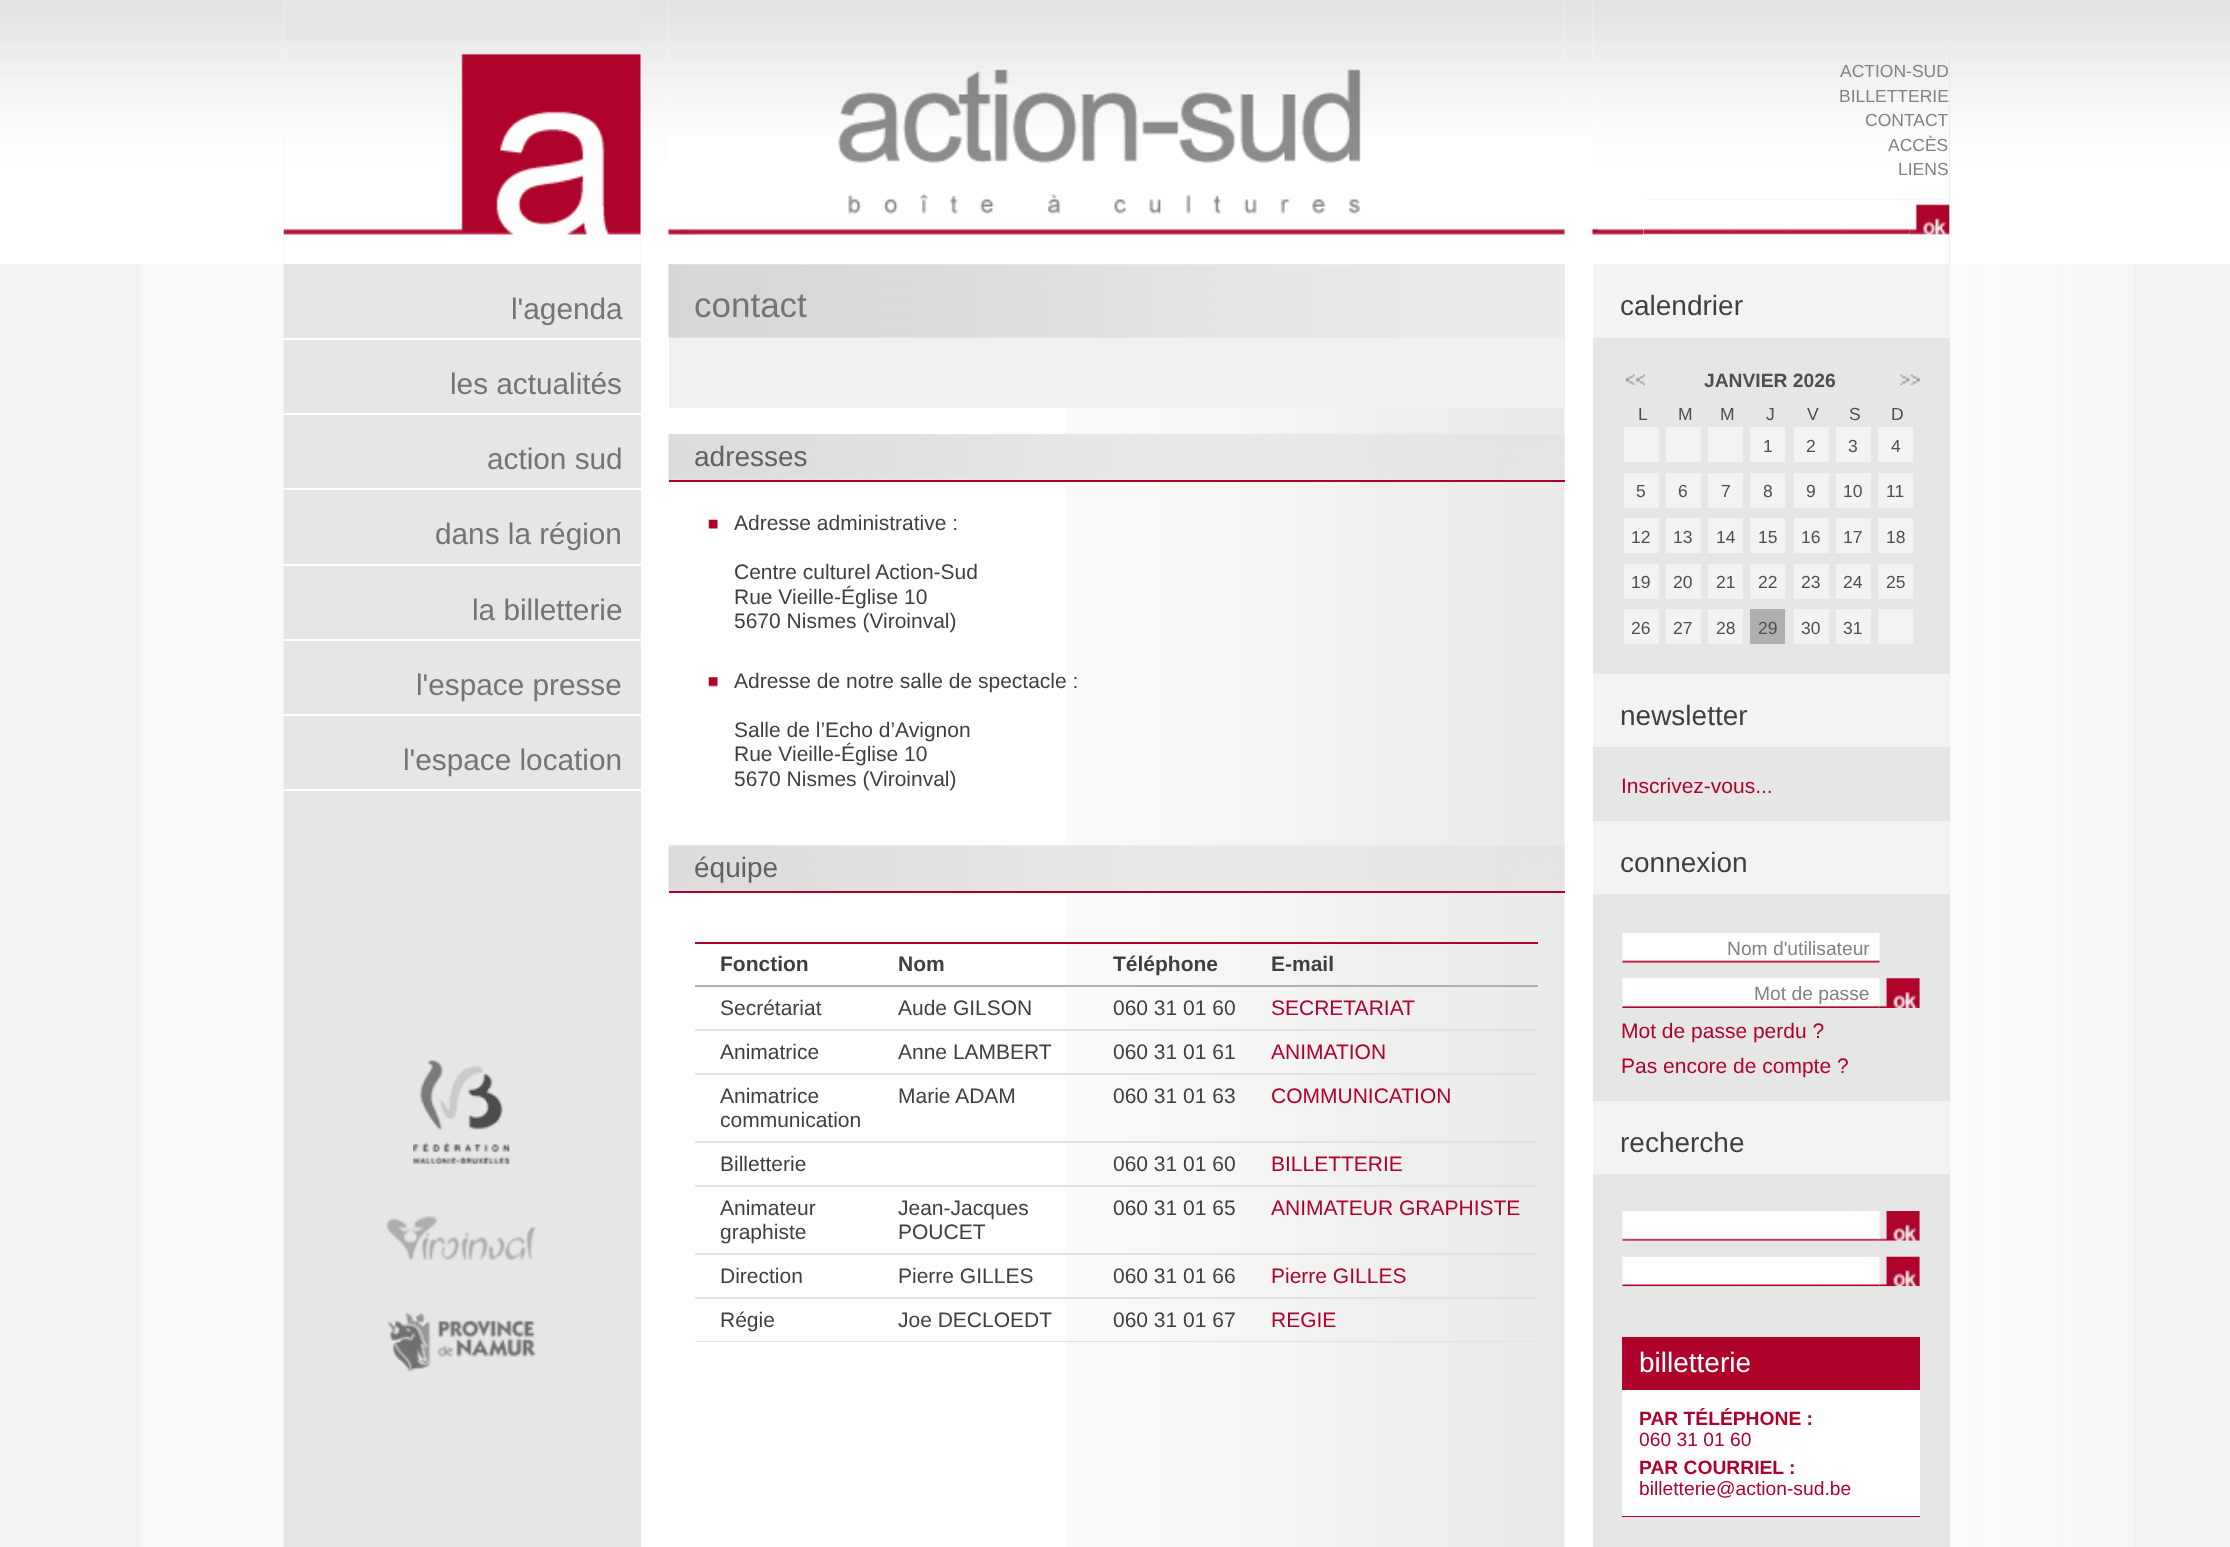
(async () => {
    const canvas = document.querySelector("canvas");
    canvas.width = 2230;
    canvas.height = 1547;
    const context = canvas.getContext("2d");
    context.miterLimit = 4;
    context.fontKerning = "normal";
    function write(s, x, y, font, color) {
        context.font = font;
        context.fillStyle = color;
        context.fillText(s, x, y);
    }
    function block(x, y, w, h, color) {
        context.fillStyle = color;
        context.fillRect(x, y, w, h);
    }
    async function photo(src, x, y, w, h) {
        const img = new Image();
        img.src = src;
        await img.decode();
        context.drawImage(img, x, y, w, h);
    }

    block(0, 0, 2230, 1547, "rgb(255, 255, 255)");
    block(0, 0, 284, 1547, "rgb(243, 243, 243)");
    block(140, 264, 143, 1283, "rgb(249, 249, 249)");
    await photo("media/1.png", 0, 0, 284, 264);
    block(284, 0, 357, 1547, "rgb(230, 230, 230)");
    await photo("media/2.png", 284, 40, 357, 224);
    await photo("media/4.png", 640, 0, 29, 264);
    await photo("media/3.png", 283, 53, 358, 182);
    await photo("media/5.png", 668, 0, 897, 135);
    await photo("media/7.png", 1564, 0, 29, 135);
    await photo("media/6.png", 668, 69, 897, 166);
    block(1949, 0, 1, 264, "rgb(230, 230, 230)");
    await photo("media/8.png", 1592, 0, 358, 264);
    write("ACTION-SUD", 1840, 77, "17.5px Liberation Sans", "rgb(131, 129, 131)");
    write("BILLETTERIE", 1839, 102, "17.5px Liberation Sans", "rgb(131, 129, 131)");
    write("CONTACT", 1865, 126, "17.5px Liberation Sans", "rgb(131, 129, 131)");
    write("ACCÈS", 1888, 151, "17.5px Liberation Sans", "rgb(131, 129, 131)");
    write("LIENS", 1898, 175, "17.5px Liberation Sans", "rgb(131, 129, 131)");
    await photo("media/9.png", 1592, 228, 51, 7);
    await photo("media/10.png", 1643, 199, 267, 1);
    await photo("media/11.png", 1643, 228, 266, 7);
    await photo("media/12.png", 1909, 199, 40, 1);
    block(1909, 200, 41, 35, "rgb(239, 239, 239)");
    await photo("media/13.png", 1909, 200, 41, 35);
    write("l'agenda", 511, 319, "29.75px Liberation Sans", "rgb(116, 116, 116)");
    block(284, 338, 357, 2, "rgb(255, 255, 255)");
    write("les actualités", 450, 394, "29.75px Liberation Sans", "rgb(116, 116, 116)");
    block(284, 413, 357, 2, "rgb(255, 255, 255)");
    write("action sud", 487, 469, "29.75px Liberation Sans", "rgb(116, 116, 116)");
    block(284, 488, 357, 2, "rgb(255, 255, 255)");
    write("dans la région", 435, 544, "29.75px Liberation Sans", "rgb(116, 116, 116)");
    block(284, 564, 357, 2, "rgb(255, 255, 255)");
    write("la billetterie", 472, 620, "29.75px Liberation Sans", "rgb(116, 116, 116)");
    block(284, 639, 357, 2, "rgb(255, 255, 255)");
    write("l'espace presse", 416, 695, "29.75px Liberation Sans", "rgb(116, 116, 116)");
    block(284, 714, 357, 2, "rgb(255, 255, 255)");
    write("l'espace location", 403, 770, "29.75px Liberation Sans", "rgb(116, 116, 116)");
    block(284, 789, 357, 2, "rgb(255, 255, 255)");
    await photo("media/14.png", 413, 1060, 97, 104);
    await photo("media/15.png", 386, 1216, 150, 44);
    await photo("media/16.png", 387, 1312, 149, 60);
    await photo("media/17.png", 1065, 264, 500, 1283);
    await photo("media/18.png", 668, 264, 897, 74);
    write("contact", 694, 317, "35px Liberation Sans", "rgb(116, 116, 116)");
    block(669, 338, 896, 70, "rgb(241, 241, 241)");
    await photo("media/19.png", 668, 434, 897, 48);
    block(669, 480, 896, 2, "rgb(175, 2, 43)");
    write("adresses", 694, 466, "28px Liberation Sans", "rgb(97, 97, 97)");
    await photo("media/20.png", 708, 519, 10, 10);
    write("Adresse administrative :", 734, 530, "21px Liberation Sans", "rgb(63, 63, 63)");
    write("Centre culturel Action-Sud", 734, 579, "21px Liberation Sans", "rgb(63, 63, 63)");
    write("Rue Vieille-Église 10", 734, 604, "21px Liberation Sans", "rgb(63, 63, 63)");
    write("5670 Nismes (Viroinval)", 734, 628, "21px Liberation Sans", "rgb(63, 63, 63)");
    await photo("media/21.png", 708, 677, 10, 10);
    write("Adresse de notre salle de spectacle :", 734, 688, "21px Liberation Sans", "rgb(63, 63, 63)");
    write("Salle de l’Echo d’Avignon", 734, 737, "21px Liberation Sans", "rgb(63, 63, 63)");
    write("Rue Vieille-Église 10", 734, 761, "21px Liberation Sans", "rgb(63, 63, 63)");
    write("5670 Nismes (Viroinval)", 734, 786, "21px Liberation Sans", "rgb(63, 63, 63)");
    await photo("media/22.png", 668, 845, 897, 48);
    block(669, 891, 896, 2, "rgb(175, 2, 43)");
    write("équipe", 694, 877, "28px Liberation Sans", "rgb(97, 97, 97)");
    write("Fonction", 720, 971, "bold 21px Liberation Sans", "rgb(63, 63, 63)");
    write("Nom", 898, 971, "bold 21px Liberation Sans", "rgb(63, 63, 63)");
    write("Téléphone", 1113, 971, "bold 21px Liberation Sans", "rgb(63, 63, 63)");
    block(695, 942, 843, 2, "rgb(175, 2, 43)");
    block(695, 985, 843, 2, "rgb(176, 176, 176)");
    write("E-mail", 1271, 971, "bold 21px Liberation Sans", "rgb(63, 63, 63)");
    write("Secrétariat", 720, 1015, "21px Liberation Sans", "rgb(63, 63, 63)");
    write("Aude GILSON", 898, 1015, "21px Liberation Sans", "rgb(63, 63, 63)");
    write("060 31 01 60", 1113, 1015, "21px Liberation Sans", "rgb(63, 63, 63)");
    block(695, 1029, 843, 2, "rgb(226, 226, 226)");
    write("SECRETARIAT", 1271, 1015, "21px Liberation Sans", "rgb(175, 2, 43)");
    write("Animatrice", 720, 1059, "21px Liberation Sans", "rgb(63, 63, 63)");
    write("Anne LAMBERT", 898, 1059, "21px Liberation Sans", "rgb(63, 63, 63)");
    write("060 31 01 61", 1113, 1059, "21px Liberation Sans", "rgb(63, 63, 63)");
    block(695, 1073, 843, 2, "rgb(226, 226, 226)");
    write("ANIMATION", 1271, 1059, "21px Liberation Sans", "rgb(175, 2, 43)");
    write("Animatrice", 720, 1103, "21px Liberation Sans", "rgb(63, 63, 63)");
    write("communication", 720, 1127, "21px Liberation Sans", "rgb(63, 63, 63)");
    write("Marie ADAM", 898, 1103, "21px Liberation Sans", "rgb(63, 63, 63)");
    write("060 31 01 63", 1113, 1103, "21px Liberation Sans", "rgb(63, 63, 63)");
    block(695, 1141, 843, 2, "rgb(226, 226, 226)");
    write("COMMUNICATION", 1271, 1103, "21px Liberation Sans", "rgb(175, 2, 43)");
    write("Billetterie", 720, 1171, "21px Liberation Sans", "rgb(63, 63, 63)");
    write("060 31 01 60", 1113, 1171, "21px Liberation Sans", "rgb(63, 63, 63)");
    block(695, 1185, 843, 2, "rgb(226, 226, 226)");
    write("BILLETTERIE", 1271, 1171, "21px Liberation Sans", "rgb(175, 2, 43)");
    write("Animateur", 720, 1215, "21px Liberation Sans", "rgb(63, 63, 63)");
    write("graphiste", 720, 1239, "21px Liberation Sans", "rgb(63, 63, 63)");
    write("Jean-Jacques", 898, 1215, "21px Liberation Sans", "rgb(63, 63, 63)");
    write("POUCET", 898, 1239, "21px Liberation Sans", "rgb(63, 63, 63)");
    write("060 31 01 65", 1113, 1215, "21px Liberation Sans", "rgb(63, 63, 63)");
    block(695, 1253, 843, 2, "rgb(226, 226, 226)");
    write("ANIMATEUR GRAPHISTE", 1271, 1215, "21px Liberation Sans", "rgb(175, 2, 43)");
    write("Direction", 720, 1283, "21px Liberation Sans", "rgb(63, 63, 63)");
    write("Pierre GILLES", 898, 1283, "21px Liberation Sans", "rgb(63, 63, 63)");
    write("060 31 01 66", 1113, 1283, "21px Liberation Sans", "rgb(63, 63, 63)");
    block(695, 1297, 843, 2, "rgb(226, 226, 226)");
    write("Pierre GILLES", 1271, 1283, "21px Liberation Sans", "rgb(175, 2, 43)");
    write("Régie", 720, 1327, "21px Liberation Sans", "rgb(63, 63, 63)");
    write("Joe DECLOEDT", 898, 1327, "21px Liberation Sans", "rgb(63, 63, 63)");
    write("060 31 01 67", 1113, 1327, "21px Liberation Sans", "rgb(63, 63, 63)");
    block(695, 1341, 843, 1, "rgb(226, 226, 226)");
    write("REGIE", 1271, 1327, "21px Liberation Sans", "rgb(175, 2, 43)");
    block(1593, 338, 357, 1209, "rgb(230, 230, 230)");
    block(1593, 264, 357, 74, "rgb(243, 243, 243)");
    write("calendrier", 1620, 315, "28px Liberation Sans", "rgb(63, 63, 63)");
    await photo("media/23.png", 1625, 374, 20, 11);
    write("JANVIER 2026", 1704, 387, "bold 19.25px Liberation Sans", "rgb(78, 78, 78)");
    await photo("media/24.png", 1900, 374, 20, 11);
    write("L", 1638, 420, "17.5px Liberation Sans", "rgb(78, 78, 78)");
    write("M", 1678, 420, "17.5px Liberation Sans", "rgb(78, 78, 78)");
    write("M", 1720, 420, "17.5px Liberation Sans", "rgb(78, 78, 78)");
    write("J", 1766, 420, "17.5px Liberation Sans", "rgb(78, 78, 78)");
    write("V", 1807, 420, "17.5px Liberation Sans", "rgb(78, 78, 78)");
    write("S", 1849, 420, "17.5px Liberation Sans", "rgb(78, 78, 78)");
    write("D", 1891, 420, "17.5px Liberation Sans", "rgb(78, 78, 78)");
    block(1624, 427, 35, 35, "rgb(243, 243, 243)");
    block(1666, 427, 35, 35, "rgb(243, 243, 243)");
    block(1708, 427, 35, 35, "rgb(243, 243, 243)");
    block(1750, 427, 35, 35, "rgb(243, 243, 243)");
    write("1", 1763, 452, "17.5px Liberation Sans", "rgb(78, 78, 78)");
    block(1794, 427, 35, 35, "rgb(243, 243, 243)");
    write("2", 1806, 452, "17.5px Liberation Sans", "rgb(78, 78, 78)");
    block(1836, 427, 35, 35, "rgb(243, 243, 243)");
    write("3", 1848, 452, "17.5px Liberation Sans", "rgb(78, 78, 78)");
    block(1878, 427, 35, 35, "rgb(243, 243, 243)");
    write("4", 1891, 452, "17.5px Liberation Sans", "rgb(78, 78, 78)");
    block(1624, 473, 35, 35, "rgb(243, 243, 243)");
    write("5", 1636, 497, "17.5px Liberation Sans", "rgb(78, 78, 78)");
    block(1666, 473, 35, 35, "rgb(243, 243, 243)");
    write("6", 1678, 497, "17.5px Liberation Sans", "rgb(78, 78, 78)");
    block(1708, 473, 35, 35, "rgb(243, 243, 243)");
    write("7", 1721, 497, "17.5px Liberation Sans", "rgb(78, 78, 78)");
    block(1750, 473, 35, 35, "rgb(243, 243, 243)");
    write("8", 1763, 497, "17.5px Liberation Sans", "rgb(78, 78, 78)");
    block(1794, 473, 35, 35, "rgb(243, 243, 243)");
    write("9", 1806, 497, "17.5px Liberation Sans", "rgb(78, 78, 78)");
    block(1836, 473, 35, 35, "rgb(243, 243, 243)");
    write("10", 1843, 497, "17.5px Liberation Sans", "rgb(78, 78, 78)");
    block(1878, 473, 35, 35, "rgb(243, 243, 243)");
    write("11", 1886, 497, "17.5px Liberation Sans", "rgb(78, 78, 78)");
    block(1624, 518, 35, 35, "rgb(243, 243, 243)");
    write("12", 1631, 543, "17.5px Liberation Sans", "rgb(78, 78, 78)");
    block(1666, 518, 35, 35, "rgb(243, 243, 243)");
    write("13", 1673, 543, "17.5px Liberation Sans", "rgb(78, 78, 78)");
    block(1708, 518, 35, 35, "rgb(243, 243, 243)");
    write("14", 1716, 543, "17.5px Liberation Sans", "rgb(78, 78, 78)");
    block(1750, 518, 35, 35, "rgb(243, 243, 243)");
    write("15", 1758, 543, "17.5px Liberation Sans", "rgb(78, 78, 78)");
    block(1794, 518, 35, 35, "rgb(243, 243, 243)");
    write("16", 1801, 543, "17.5px Liberation Sans", "rgb(78, 78, 78)");
    block(1836, 518, 35, 35, "rgb(243, 243, 243)");
    write("17", 1843, 543, "17.5px Liberation Sans", "rgb(78, 78, 78)");
    block(1878, 518, 35, 35, "rgb(243, 243, 243)");
    write("18", 1886, 543, "17.5px Liberation Sans", "rgb(78, 78, 78)");
    block(1624, 564, 35, 35, "rgb(243, 243, 243)");
    write("19", 1631, 588, "17.5px Liberation Sans", "rgb(78, 78, 78)");
    block(1666, 564, 35, 35, "rgb(243, 243, 243)");
    write("20", 1673, 588, "17.5px Liberation Sans", "rgb(78, 78, 78)");
    block(1708, 564, 35, 35, "rgb(243, 243, 243)");
    write("21", 1716, 588, "17.5px Liberation Sans", "rgb(78, 78, 78)");
    block(1750, 564, 35, 35, "rgb(243, 243, 243)");
    write("22", 1758, 588, "17.5px Liberation Sans", "rgb(78, 78, 78)");
    block(1794, 564, 35, 35, "rgb(243, 243, 243)");
    write("23", 1801, 588, "17.5px Liberation Sans", "rgb(78, 78, 78)");
    block(1836, 564, 35, 35, "rgb(243, 243, 243)");
    write("24", 1843, 588, "17.5px Liberation Sans", "rgb(78, 78, 78)");
    block(1878, 564, 35, 35, "rgb(243, 243, 243)");
    write("25", 1886, 588, "17.5px Liberation Sans", "rgb(78, 78, 78)");
    block(1624, 609, 35, 35, "rgb(243, 243, 243)");
    write("26", 1631, 634, "17.5px Liberation Sans", "rgb(78, 78, 78)");
    block(1666, 609, 35, 35, "rgb(243, 243, 243)");
    write("27", 1673, 634, "17.5px Liberation Sans", "rgb(78, 78, 78)");
    block(1708, 609, 35, 35, "rgb(243, 243, 243)");
    write("28", 1716, 634, "17.5px Liberation Sans", "rgb(78, 78, 78)");
    block(1750, 609, 35, 35, "rgb(176, 175, 176)");
    write("29", 1758, 634, "17.5px Liberation Sans", "rgb(78, 78, 78)");
    block(1794, 609, 35, 35, "rgb(243, 243, 243)");
    write("30", 1801, 634, "17.5px Liberation Sans", "rgb(78, 78, 78)");
    block(1836, 609, 35, 35, "rgb(243, 243, 243)");
    write("31", 1843, 634, "17.5px Liberation Sans", "rgb(78, 78, 78)");
    block(1878, 609, 35, 35, "rgb(243, 243, 243)");
    block(1593, 674, 357, 73, "rgb(243, 243, 243)");
    write("newsletter", 1620, 725, "28px Liberation Sans", "rgb(63, 63, 63)");
    write("Inscrivez-vous...", 1621, 793, "21px Liberation Sans", "rgb(175, 2, 43)");
    block(1593, 821, 357, 73, "rgb(243, 243, 243)");
    write("connexion", 1620, 872, "28px Liberation Sans", "rgb(63, 63, 63)");
    await photo("media/25.png", 1622, 933, 258, 30);
    write("Nom d'utilisateur", 1727, 955, "19.25px Liberation Sans", "rgb(131, 129, 131)");
    await photo("media/26.png", 1622, 978, 258, 30);
    write("Mot de passe", 1754, 1000, "19.25px Liberation Sans", "rgb(131, 129, 131)");
    await photo("media/27.png", 1879, 978, 41, 30);
    write("Mot de passe perdu ?", 1621, 1038, "21px Liberation Sans", "rgb(175, 2, 43)");
    write("Pas encore de compte ?", 1621, 1073, "21px Liberation Sans", "rgb(175, 2, 43)");
    block(1593, 1101, 357, 73, "rgb(243, 243, 243)");
    write("recherche", 1620, 1152, "28px Liberation Sans", "rgb(63, 63, 63)");
    await photo("media/28.png", 1622, 1211, 258, 30);
    await photo("media/29.png", 1879, 1211, 41, 30);
    await photo("media/30.png", 1622, 1256, 258, 31);
    await photo("media/31.png", 1879, 1256, 41, 31);
    block(1622, 1337, 298, 53, "rgb(175, 2, 43)");
    write("billetterie", 1639, 1372, "28px Liberation Sans", "rgb(255, 255, 255)");
    block(1622, 1390, 298, 126, "rgb(255, 255, 255)");
    write("PAR TÉLÉPHONE :", 1639, 1425, "bold 19.25px Liberation Sans", "rgb(175, 2, 43)");
    write("060 31 01 60", 1639, 1446, "19.25px Liberation Sans", "rgb(175, 2, 43)");
    block(1622, 1516, 298, 1, "rgb(175, 2, 43)");
    write("PAR COURRIEL :", 1639, 1474, "bold 19.25px Liberation Sans", "rgb(175, 2, 43)");
    write("billetterie@action-sud.be", 1639, 1495, "19.25px Liberation Sans", "rgb(175, 2, 43)");
    block(2133, 264, 97, 1283, "rgb(242, 242, 242)");
    await photo("media/32.png", 1950, 264, 183, 1283);
    await photo("media/33.png", 1950, 0, 280, 264);
})();
